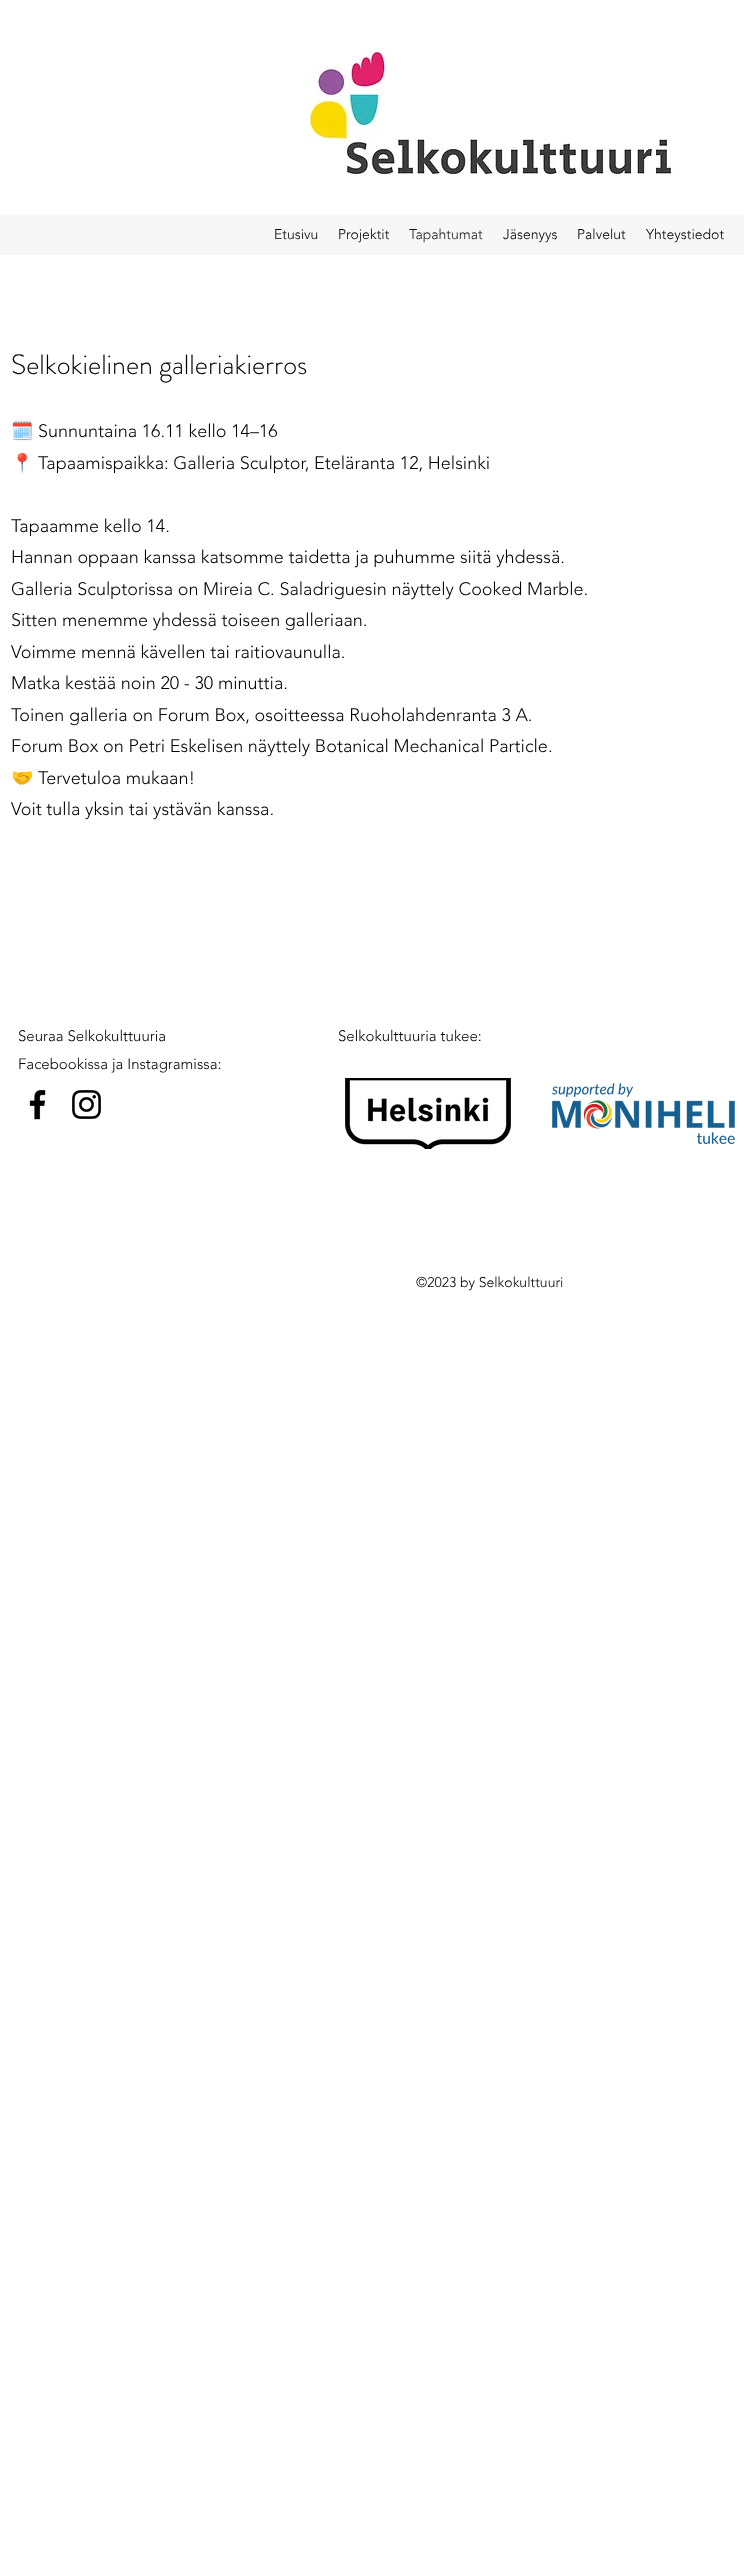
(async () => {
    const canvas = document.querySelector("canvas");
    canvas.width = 744;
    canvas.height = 2550;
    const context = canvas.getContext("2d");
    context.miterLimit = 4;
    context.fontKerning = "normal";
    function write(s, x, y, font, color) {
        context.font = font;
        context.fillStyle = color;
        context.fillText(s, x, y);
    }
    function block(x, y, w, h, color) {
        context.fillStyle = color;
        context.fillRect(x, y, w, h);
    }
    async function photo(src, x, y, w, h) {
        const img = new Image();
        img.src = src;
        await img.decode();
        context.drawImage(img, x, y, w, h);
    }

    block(0, 0, 744, 2550, "rgb(255, 255, 255)");
    await photo("media/1.png", 309, 50, 365, 125);
    block(0, 215, 744, 40, "rgb(247, 247, 247)");
    write("Etusivu", 274, 239, "300 14px 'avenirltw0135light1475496'", "rgb(0, 0, 0)");
    write("Projektit", 338, 239, "300 14px 'avenirltw0135light1475496'", "rgb(0, 0, 0)");
    write("Tapahtumat", 409, 239, "300 14px 'avenirltw0135light1475496'", "rgb(25, 25, 25)");
    write("Jäsenyys", 503, 239, "300 14px 'avenirltw0135light1475496'", "rgb(0, 0, 0)");
    write("Palvelut", 577, 239, "300 14px 'avenirltw0135light1475496'", "rgb(0, 0, 0)");
    write("Yhteystiedot", 646, 239, "300 14px 'avenirltw0135light1475496'", "rgb(0, 0, 0)");
    write("Selkokielinen galleriakierros", 11, 374, "300 28px 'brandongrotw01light'", "rgb(0, 0, 0)");
    write("🗓️", 11, 437, "18px Noto Color Emoji", "rgb(0, 0, 0)");
    write("Sunnuntaina 16.11 kello 14–16", 38, 437, "300 18px 'avenirltw0135light1475496'", "rgb(0, 0, 0)");
    write("📍", 11, 469, "18px Noto Color Emoji", "rgb(0, 0, 0)");
    write("Tapaamispaikka: Galleria Sculptor, Eteläranta 12, Helsinki", 38, 469, "300 18px 'avenirltw0135light1475496'", "rgb(0, 0, 0)");
    write("Tapaamme kello 14.", 11, 532, "300 18px 'avenirltw0135light1475496'", "rgb(0, 0, 0)");
    write("Hannan oppaan kanssa katsomme taidetta ja puhumme siitä yhdessä.", 11, 563, "300 18px 'avenirltw0135light1475496'", "rgb(0, 0, 0)");
    write("Galleria Sculptorissa on Mireia C. Saladriguesin näyttely Cooked Marble.", 11, 595, "300 18px 'avenirltw0135light1475496'", "rgb(0, 0, 0)");
    write("Sitten menemme yhdessä toiseen galleriaan.", 11, 626, "300 18px 'avenirltw0135light1475496'", "rgb(0, 0, 0)");
    write("Voimme mennä kävellen tai raitiovaunulla.", 11, 658, "300 18px 'avenirltw0135light1475496'", "rgb(0, 0, 0)");
    write("Matka kestää noin 20 - 30 minuttia.", 11, 689, "300 18px 'avenirltw0135light1475496'", "rgb(0, 0, 0)");
    write("Toinen galleria on Forum Box, osoitteessa Ruoholahdenranta 3 A.", 11, 721, "300 18px 'avenirltw0135light1475496'", "rgb(0, 0, 0)");
    write("Forum Box on Petri Eskelisen näyttely Botanical Mechanical Particle.", 11, 752, "300 18px 'avenirltw0135light1475496'", "rgb(0, 0, 0)");
    write("🤝", 11, 784, "18px Noto Color Emoji", "rgb(0, 0, 0)");
    write("Tervetuloa mukaan!", 38, 784, "300 18px 'avenirltw0135light1475496'", "rgb(0, 0, 0)");
    write("Voit tulla yksin tai ystävän kanssa.", 11, 815, "300 18px 'avenirltw0135light1475496'", "rgb(0, 0, 0)");
    write("Seuraa Selkokulttuuria", 18, 1041, "300 15px 'avenirltw0135light1475496'", "rgb(0, 0, 0)");
    write("Facebookissa ja Instagramissa:", 18, 1069, "300 15px 'avenirltw0135light1475496'", "rgb(0, 0, 0)");
    write("Selkokulttuuria tukee:", 338, 1041, "300 15px 'avenirltw0135light1475496'", "rgb(0, 0, 0)");
    await photo("media/2.png", 29, 1090, 17, 30);
    await photo("media/3.png", 72, 1090, 29, 29);
    await photo("media/4.png", 345, 1078, 166, 71);
    await photo("media/5.png", 552, 1083, 183, 61);
    write("©2023 by Selkokulttuuri", 416, 1287, "300 14px 'avenirltw0135light1475496'", "rgb(0, 0, 0)");
})();
